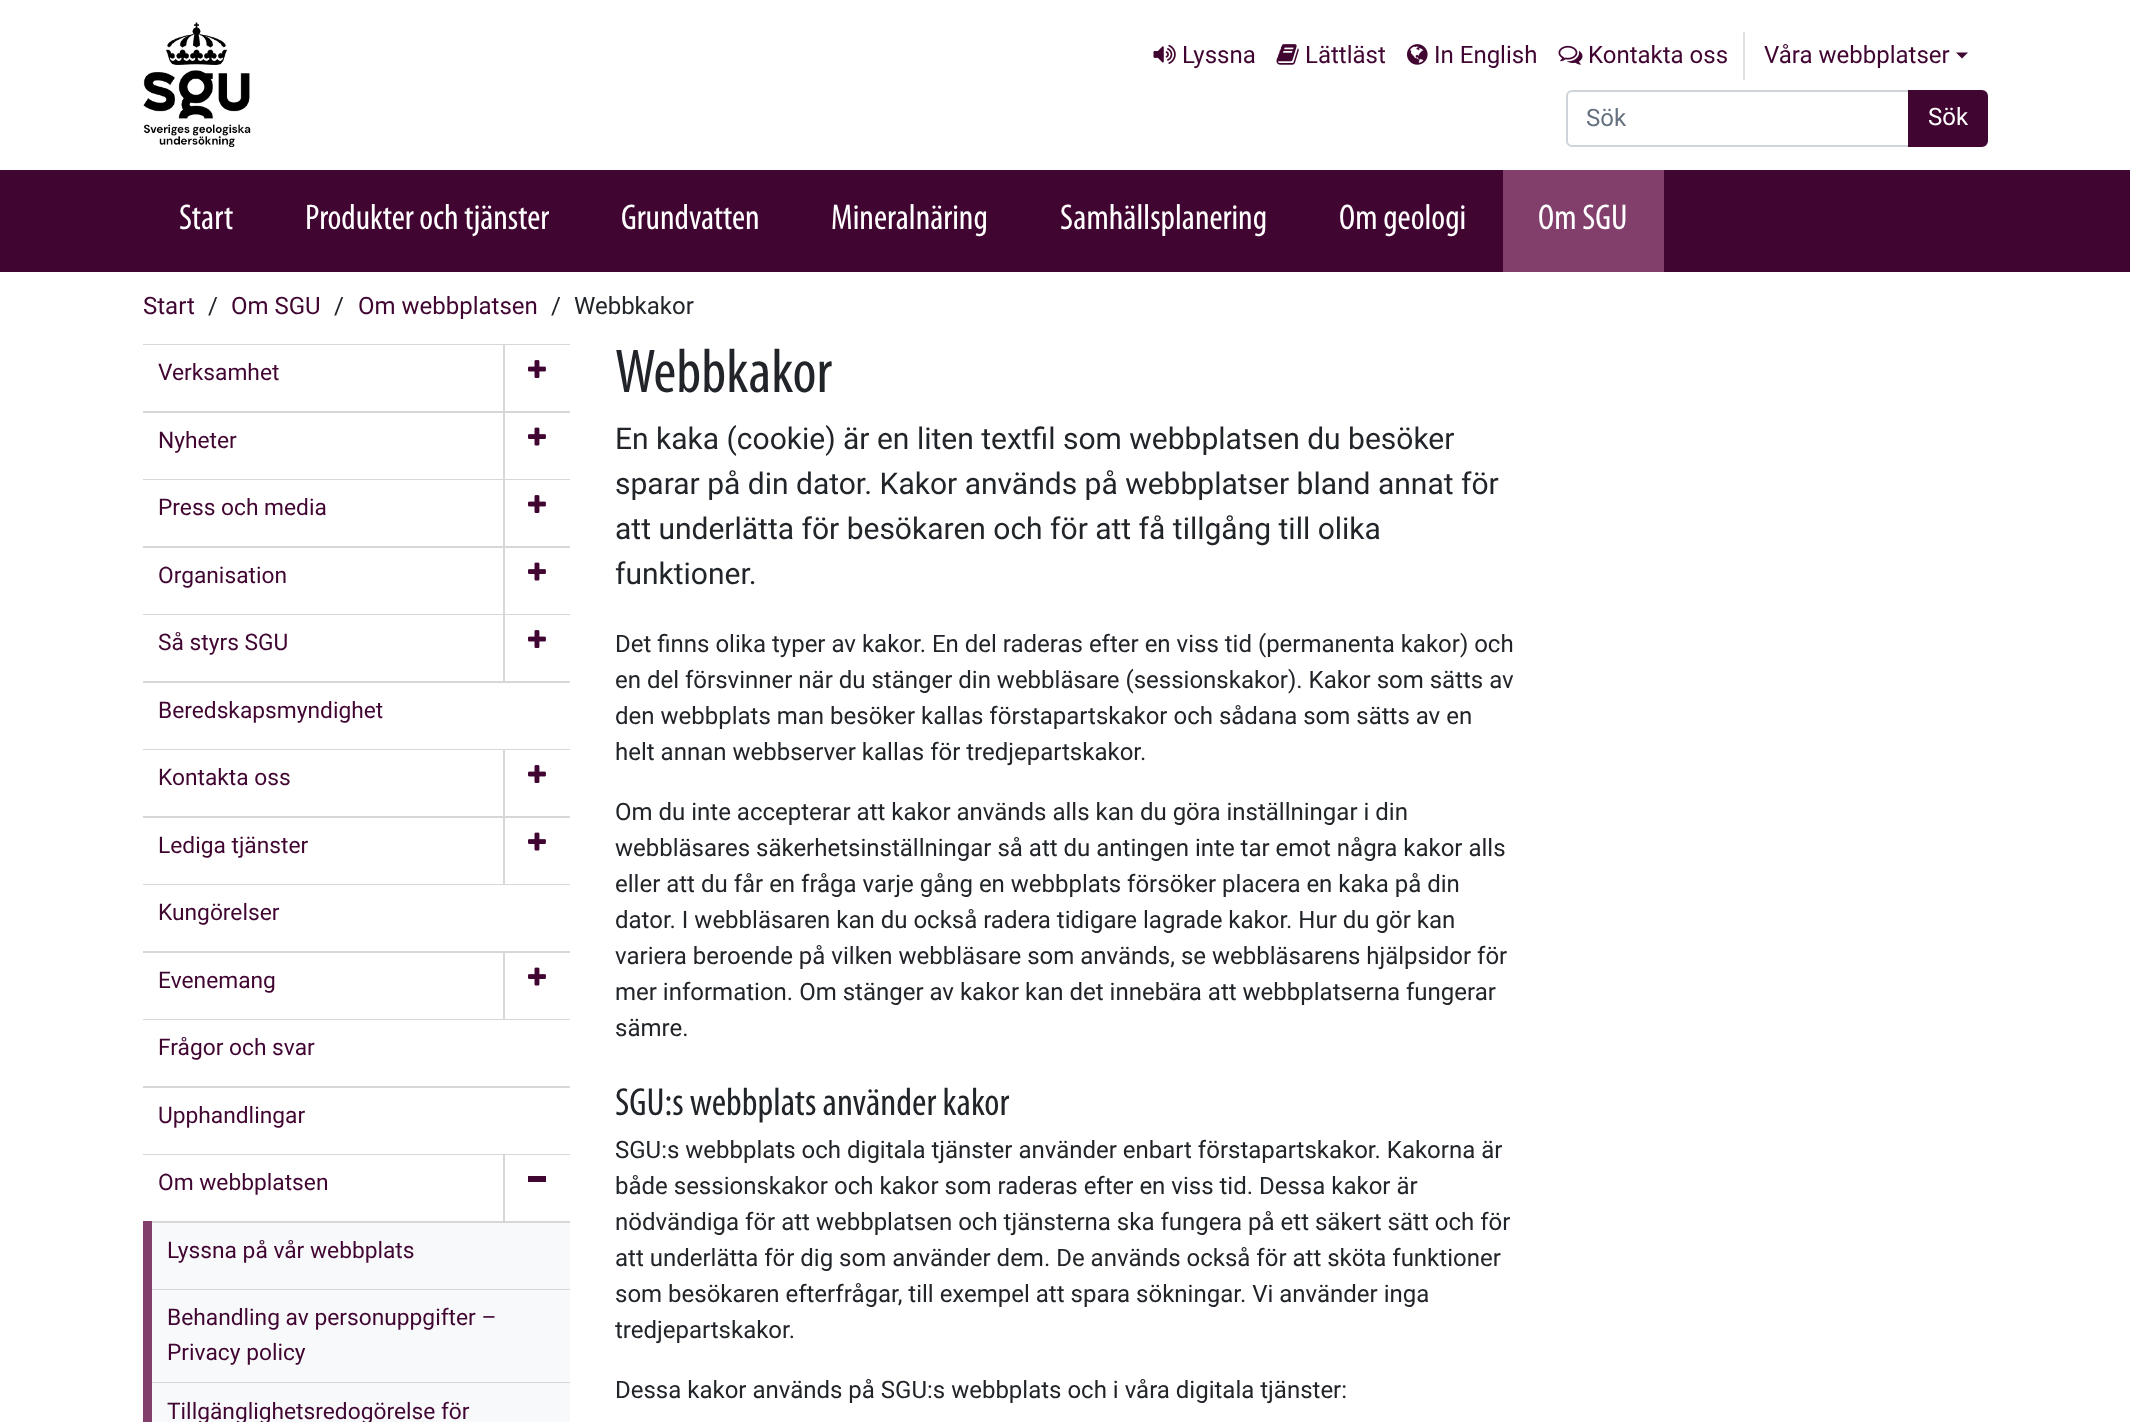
(async () => {
    const canvas = document.querySelector("canvas");
    canvas.width = 2130;
    canvas.height = 1422;
    const context = canvas.getContext("2d");
    context.miterLimit = 4;
    context.fontKerning = "normal";
    function write(s, x, y, font, color) {
        context.font = font;
        context.fillStyle = color;
        context.fillText(s, x, y);
    }
    function block(x, y, w, h, color) {
        context.fillStyle = color;
        context.fillRect(x, y, w, h);
    }
    async function photo(src, x, y, w, h) {
        const img = new Image();
        img.src = src;
        await img.decode();
        context.drawImage(img, x, y, w, h);
    }

    block(0, 0, 2130, 1422, "rgb(255, 255, 255)");
    await photo("media/1.png", 143, 22, 108, 125);
    await photo("media/2.png", 1153, 44, 23, 20);
    write("Lyssna", 1182, 63, "24px Roboto", "rgb(65, 5, 50)");
    await photo("media/3.png", 1276, 44, 23, 21);
    write("Lättläst", 1305, 63, "24px Roboto", "rgb(65, 5, 50)");
    await photo("media/4.png", 1407, 44, 21, 21);
    write("In English", 1434, 63, "24px Roboto", "rgb(65, 5, 50)");
    await photo("media/5.png", 1558, 45, 25, 20);
    write("Kontakta oss", 1588, 63, "24px Roboto", "rgb(65, 5, 50)");
    block(1743, 32, 2, 48, "rgb(222, 226, 230)");
    write("Våra webbplatser", 1764, 63, "24px Roboto", "rgb(65, 5, 50)");
    context.beginPath();
    context.moveTo(1956, 52.5);
    context.lineTo(1968, 52.5);
    context.lineTo(1962, 58.5);
    context.closePath();
    context.fill();
    context.beginPath();
    context.roundRect(1567, 91, 342, 55, [5, 0, 0, 5]);
    context.strokeStyle = "rgb(206, 212, 218)";
    context.lineWidth = 2;
    context.stroke();
    write("Sök", 1586, 126, "24px Roboto", "rgb(102, 114, 129)");
    context.fillStyle = "rgb(65, 5, 50)";
    context.beginPath();
    context.roundRect(1909, 91, 78, 55, [0, 5, 5, 0]);
    context.fill();
    context.strokeStyle = "rgb(65, 5, 50)";
    context.stroke();
    write("Sök", 1928, 125, "24px Roboto", "rgb(255, 255, 255)");
    block(0, 170, 2130, 102, "rgb(65, 5, 50)");
    write("Start", 179, 229, "36px Myriad", "rgb(255, 255, 255)");
    write("Produkter och tjänster", 305, 229, "36px Myriad", "rgb(255, 255, 255)");
    write("Grundvatten", 621, 229, "36px Myriad", "rgb(255, 255, 255)");
    write("Mineralnäring", 831, 229, "36px Myriad", "rgb(255, 255, 255)");
    write("Samhällsplanering", 1060, 229, "36px Myriad", "rgb(255, 255, 255)");
    write("Om geologi", 1339, 229, "36px Myriad", "rgb(255, 255, 255)");
    block(1503, 170, 161, 102, "rgb(130, 63, 108)");
    write("Om SGU", 1538, 229, "36px Myriad", "rgb(255, 255, 255)");
    write("Start", 143, 314, "24px Roboto", "rgb(65, 5, 50)");
    write("/", 208, 314, "24px Roboto", "rgb(33, 37, 41)");
    write("Om SGU", 231, 314, "24px Roboto", "rgb(65, 5, 50)");
    write("/", 334, 314, "24px Roboto", "rgb(33, 37, 41)");
    write("Om webbplatsen", 358, 314, "24px Roboto", "rgb(65, 5, 50)");
    write("/", 551, 314, "24px Roboto", "rgb(33, 37, 41)");
    write("Webbkakor", 574, 314, "24px Roboto", "rgb(33, 37, 41)");
    block(143, 344, 427, 1, "rgb(215, 215, 215)");
    block(143, 411, 427, 2, "rgb(215, 215, 215)");
    write("Verksamhet", 158, 380, "22.75px Roboto", "rgb(65, 5, 50)");
    block(503, 345, 2, 66, "rgb(215, 215, 215)");
    await photo("media/6.png", 528, 360, 18, 18);
    block(143, 479, 427, 1, "rgb(215, 215, 215)");
    write("Nyheter", 158, 448, "22.75px Roboto", "rgb(65, 5, 50)");
    block(503, 413, 2, 66, "rgb(215, 215, 215)");
    await photo("media/7.png", 528, 427, 18, 19);
    block(143, 546, 427, 2, "rgb(215, 215, 215)");
    write("Press och media", 158, 515, "22.75px Roboto", "rgb(65, 5, 50)");
    block(503, 480, 2, 66, "rgb(215, 215, 215)");
    await photo("media/6.png", 528, 495, 18, 18);
    block(143, 614, 427, 1, "rgb(215, 215, 215)");
    write("Organisation", 158, 583, "22.75px Roboto", "rgb(65, 5, 50)");
    block(503, 548, 2, 66, "rgb(215, 215, 215)");
    await photo("media/7.png", 528, 562, 18, 19);
    block(143, 681, 427, 2, "rgb(215, 215, 215)");
    write("Så styrs SGU", 158, 650, "22.75px Roboto", "rgb(65, 5, 50)");
    block(503, 615, 2, 66, "rgb(215, 215, 215)");
    await photo("media/6.png", 528, 630, 18, 18);
    block(143, 749, 427, 1, "rgb(215, 215, 215)");
    write("Beredskapsmyndighet", 158, 718, "22.75px Roboto", "rgb(65, 5, 50)");
    block(143, 816, 427, 2, "rgb(215, 215, 215)");
    write("Kontakta oss", 158, 785, "22.75px Roboto", "rgb(65, 5, 50)");
    block(503, 750, 2, 66, "rgb(215, 215, 215)");
    await photo("media/6.png", 528, 765, 18, 18);
    block(143, 884, 427, 1, "rgb(215, 215, 215)");
    write("Lediga tjänster", 158, 853, "22.75px Roboto", "rgb(65, 5, 50)");
    block(503, 818, 2, 66, "rgb(215, 215, 215)");
    await photo("media/7.png", 528, 832, 18, 19);
    block(143, 951, 427, 2, "rgb(215, 215, 215)");
    write("Kungörelser", 158, 920, "22.75px Roboto", "rgb(65, 5, 50)");
    block(143, 1019, 427, 1, "rgb(215, 215, 215)");
    write("Evenemang", 158, 988, "22.75px Roboto", "rgb(65, 5, 50)");
    block(503, 953, 2, 66, "rgb(215, 215, 215)");
    await photo("media/7.png", 528, 967, 18, 19);
    block(143, 1086, 427, 2, "rgb(215, 215, 215)");
    write("Frågor och svar", 158, 1055, "22.75px Roboto", "rgb(65, 5, 50)");
    block(143, 1154, 427, 1, "rgb(215, 215, 215)");
    write("Upphandlingar", 158, 1123, "22.75px Roboto", "rgb(65, 5, 50)");
    write("Om webbplatsen", 158, 1190, "22.75px Roboto", "rgb(65, 5, 50)");
    block(503, 1155, 2, 66, "rgb(215, 215, 215)");
    block(528, 1176, 18, 6, "rgb(65, 5, 50)");
    block(143, 1221, 9, 201, "rgb(130, 63, 108)");
    block(152, 1221, 418, 2, "rgb(215, 215, 215)");
    block(152, 1223, 418, 66, "rgb(248, 249, 250)");
    write("Lyssna på vår webbplats", 167, 1258, "22.75px Roboto", "rgb(65, 5, 50)");
    block(152, 1289, 418, 1, "rgb(215, 215, 215)");
    block(152, 1290, 418, 92, "rgb(248, 249, 250)");
    write("Behandling av personuppgifter –", 167, 1325, "22.75px Roboto", "rgb(65, 5, 50)");
    write("Privacy policy", 167, 1360, "22.75px Roboto", "rgb(65, 5, 50)");
    block(152, 1382, 418, 1, "rgb(215, 215, 215)");
    block(152, 1383, 418, 39, "rgb(248, 249, 250)");
    write("Tillgänglighetsredogörelse för", 167, 1419, "22.75px Roboto", "rgb(65, 5, 50)");
    write("Webbkakor", 615, 392, "62.5px Myriad", "rgb(33, 37, 41)");
    write("En kaka (cookie) är en liten textfil som webbplatsen du besöker", 615, 449, "30px Roboto", "rgb(33, 37, 41)");
    write("sparar på din dator. Kakor används på webbplatser bland annat för", 615, 494, "30px Roboto", "rgb(33, 37, 41)");
    write("att underlätta för besökaren och för att få tillgång till olika", 615, 539, "30px Roboto", "rgb(33, 37, 41)");
    write("funktioner.", 615, 584, "30px Roboto", "rgb(33, 37, 41)");
    write("Det finns olika typer av kakor. En del raderas efter en viss tid (permanenta kakor) och", 615, 652, "24px Roboto", "rgb(33, 37, 41)");
    write("en del försvinner när du stänger din webbläsare (sessionskakor). Kakor som sätts av", 615, 688, "24px Roboto", "rgb(33, 37, 41)");
    write("den webbplats man besöker kallas förstapartskakor och sådana som sätts av en", 615, 724, "24px Roboto", "rgb(33, 37, 41)");
    write("helt annan webbserver kallas för tredjepartskakor.", 615, 760, "24px Roboto", "rgb(33, 37, 41)");
    write("Om du inte accepterar att kakor används alls kan du göra inställningar i din", 615, 820, "24px Roboto", "rgb(33, 37, 41)");
    write("webbläsares säkerhetsinställningar så att du antingen inte tar emot några kakor alls", 615, 856, "24px Roboto", "rgb(33, 37, 41)");
    write("eller att du får en fråga varje gång en webbplats försöker placera en kaka på din", 615, 892, "24px Roboto", "rgb(33, 37, 41)");
    write("dator. I webbläsaren kan du också radera tidigare lagrade kakor. Hur du gör kan", 615, 928, "24px Roboto", "rgb(33, 37, 41)");
    write("variera beroende på vilken webbläsare som används, se webbläsarens hjälpsidor för", 615, 964, "24px Roboto", "rgb(33, 37, 41)");
    write("mer information. Om stänger av kakor kan det innebära att webbplatserna fungerar", 615, 1000, "24px Roboto", "rgb(33, 37, 41)");
    write("sämre.", 615, 1036, "24px Roboto", "rgb(33, 37, 41)");
    write("SGU:s webbplats använder kakor", 615, 1115, "39.5px Myriad", "rgb(33, 37, 41)");
    write("SGU:s webbplats och digitala tjänster använder enbart förstapartskakor. Kakorna är", 615, 1158, "24px Roboto", "rgb(33, 37, 41)");
    write("både sessionskakor och kakor som raderas efter en viss tid. Dessa kakor är", 615, 1194, "24px Roboto", "rgb(33, 37, 41)");
    write("nödvändiga för att webbplatsen och tjänsterna ska fungera på ett säkert sätt och för", 615, 1230, "24px Roboto", "rgb(33, 37, 41)");
    write("att underlätta för dig som använder dem. De används också för att sköta funktioner", 615, 1266, "24px Roboto", "rgb(33, 37, 41)");
    write("som besökaren efterfrågar, till exempel att spara sökningar. Vi använder inga", 615, 1302, "24px Roboto", "rgb(33, 37, 41)");
    write("tredjepartskakor.", 615, 1338, "24px Roboto", "rgb(33, 37, 41)");
    write("Dessa kakor används på SGU:s webbplats och i våra digitala tjänster:", 615, 1398, "24px Roboto", "rgb(33, 37, 41)");
})();
